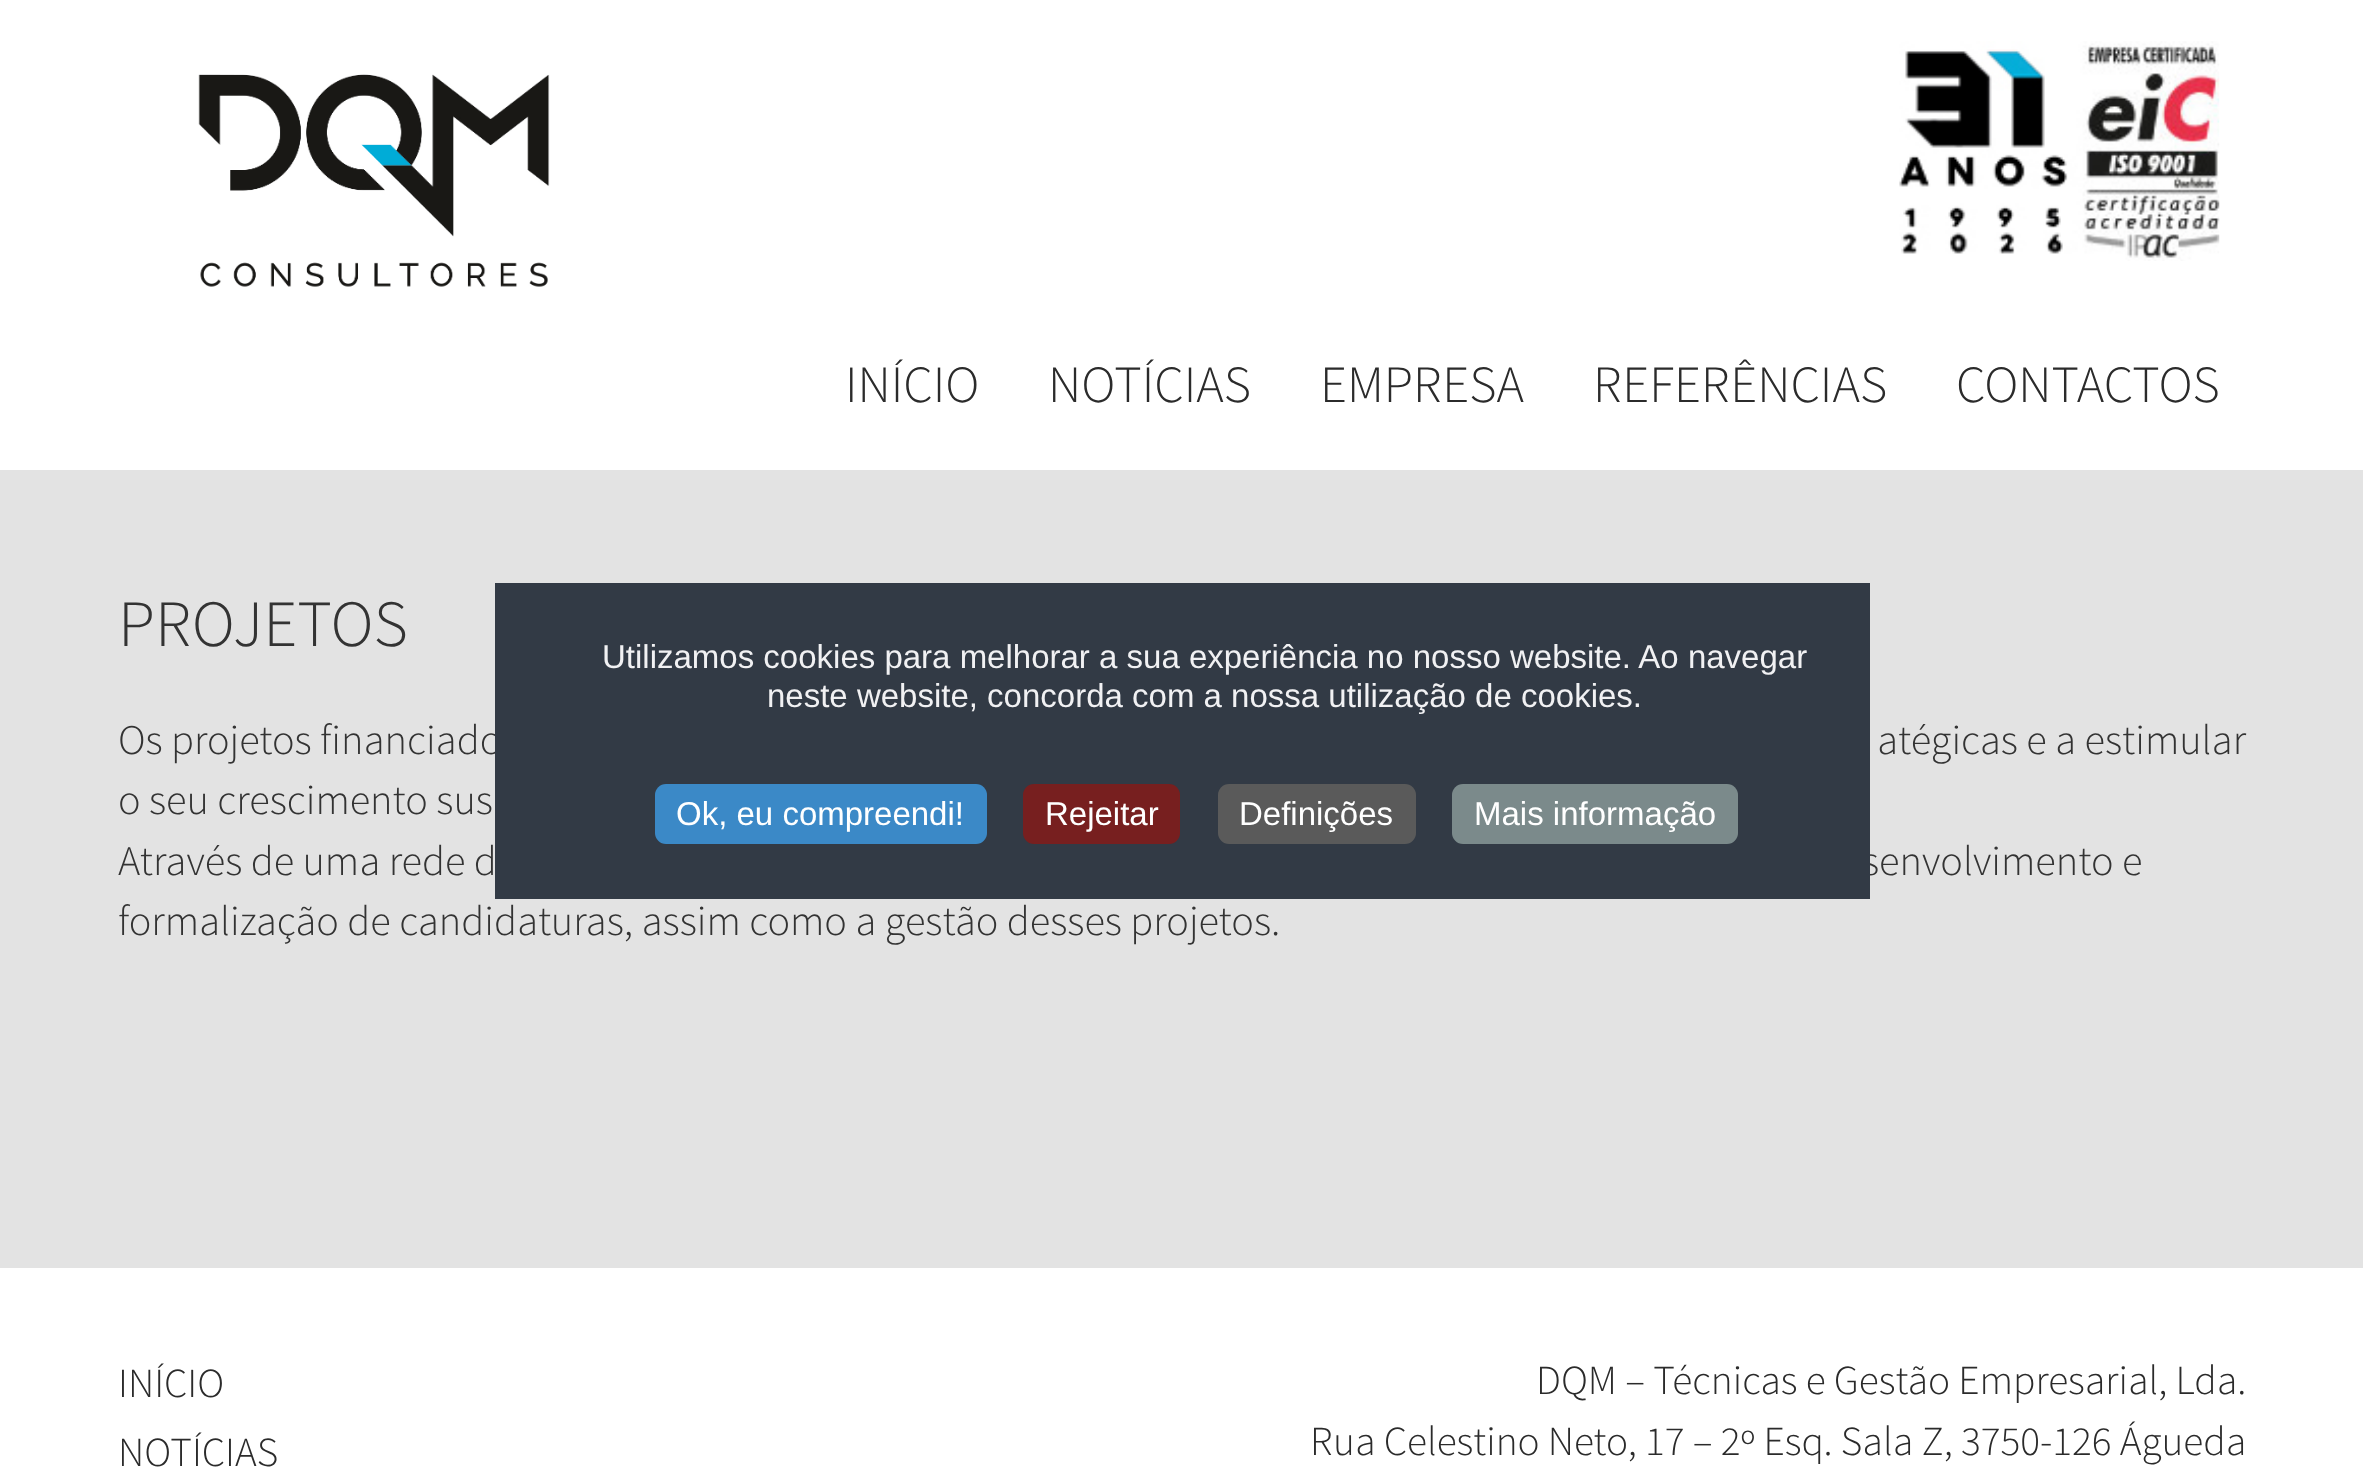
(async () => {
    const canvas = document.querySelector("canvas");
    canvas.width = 2363;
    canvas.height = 1481;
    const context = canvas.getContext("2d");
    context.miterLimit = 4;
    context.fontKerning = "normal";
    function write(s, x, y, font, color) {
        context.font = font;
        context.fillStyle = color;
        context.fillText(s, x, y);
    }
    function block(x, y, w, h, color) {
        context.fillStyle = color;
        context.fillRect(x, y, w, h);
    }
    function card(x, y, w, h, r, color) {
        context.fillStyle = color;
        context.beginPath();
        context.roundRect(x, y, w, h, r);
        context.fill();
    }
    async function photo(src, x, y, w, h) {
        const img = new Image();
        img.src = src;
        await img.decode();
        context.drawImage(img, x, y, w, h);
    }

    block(0, 0, 2363, 1481, "rgb(255, 255, 255)");
    await photo("media/1.png", 198, 74, 352, 213);
    await photo("media/2.png", 1899, 41, 321, 220);
    write("INÍCIO", 845, 402, "300 52.25px Source Sans Pro", "rgb(43, 43, 43)");
    write("NOTÍCIAS", 1048, 402, "300 52.25px Source Sans Pro", "rgb(43, 43, 43)");
    write("EMPRESA", 1320, 402, "300 52.25px Source Sans Pro", "rgb(43, 43, 43)");
    write("REFERÊNCIAS", 1593, 402, "300 52.25px Source Sans Pro", "rgb(43, 43, 43)");
    write("CONTACTOS", 1956, 402, "300 52.25px Source Sans Pro", "rgb(43, 43, 43)");
    block(0, 470, 2363, 798, "rgb(227, 227, 227)");
    write("PROJETOS", 118, 646, "300 66px Source Sans Pro", "rgb(51, 51, 51)");
    write("Os projetos financiado", 118, 754, "300 42.25px Source Sans Pro", "rgb(51, 51, 51)");
    write("atégicas e a estimular", 1877, 754, "300 42.25px Source Sans Pro", "rgb(51, 51, 51)");
    write("o seu crescimento sus", 118, 814, "300 42.25px Source Sans Pro", "rgb(51, 51, 51)");
    write("Através de uma rede d", 118, 875, "300 42.25px Source Sans Pro", "rgb(51, 51, 51)");
    write("senvolvimento e", 1862, 875, "300 42.25px Source Sans Pro", "rgb(51, 51, 51)");
    write("formalização de candidaturas, assim como a gestão desses projetos.", 118, 935, "300 42.25px Source Sans Pro", "rgb(51, 51, 51)");
    write("INÍCIO", 118, 1397, "300 41.25px Source Sans Pro", "rgb(43, 43, 43)");
    write("NOTÍCIAS", 118, 1466, "300 41.25px Source Sans Pro", "rgb(43, 43, 43)");
    write("DQM – Técnicas e Gestão Empresarial, Lda.", 1536, 1394, "300 41.25px Source Sans Pro", "rgb(43, 43, 43)");
    write("Rua Celestino Neto, 17 – 2º Esq. Sala Z, 3750-126 Águeda", 1310, 1455, "300 41.25px Source Sans Pro", "rgb(43, 43, 43)");
    block(495, 583, 1375, 316, "rgb(50, 58, 69)");
    write("Utilizamos cookies para melhorar a sua experiência no nosso website. Ao navegar", 602, 668, "33px Liberation Sans", "rgb(241, 241, 243)");
    write("neste website, concorda com a nossa utilização de cookies.", 767, 707, "33px Liberation Sans", "rgb(241, 241, 243)");
    card(655, 784, 332, 60, 11, "rgb(59, 137, 199)");
    write("Ok, eu compreendi!", 676, 825, "33px Liberation Sans", "rgb(255, 255, 255)");
    card(1023, 784, 157, 60, 11, "rgb(119, 31, 31)");
    write("Rejeitar", 1045, 825, "33px Liberation Sans", "rgb(255, 255, 255)");
    card(1218, 784, 198, 60, 11, "rgb(90, 90, 90)");
    write("Definições", 1239, 825, "33px Liberation Sans", "rgb(255, 255, 255)");
    card(1452, 784, 286, 60, 11, "rgb(123, 138, 139)");
    write("Mais informação", 1474, 825, "33px Liberation Sans", "rgb(255, 255, 255)");
})();
